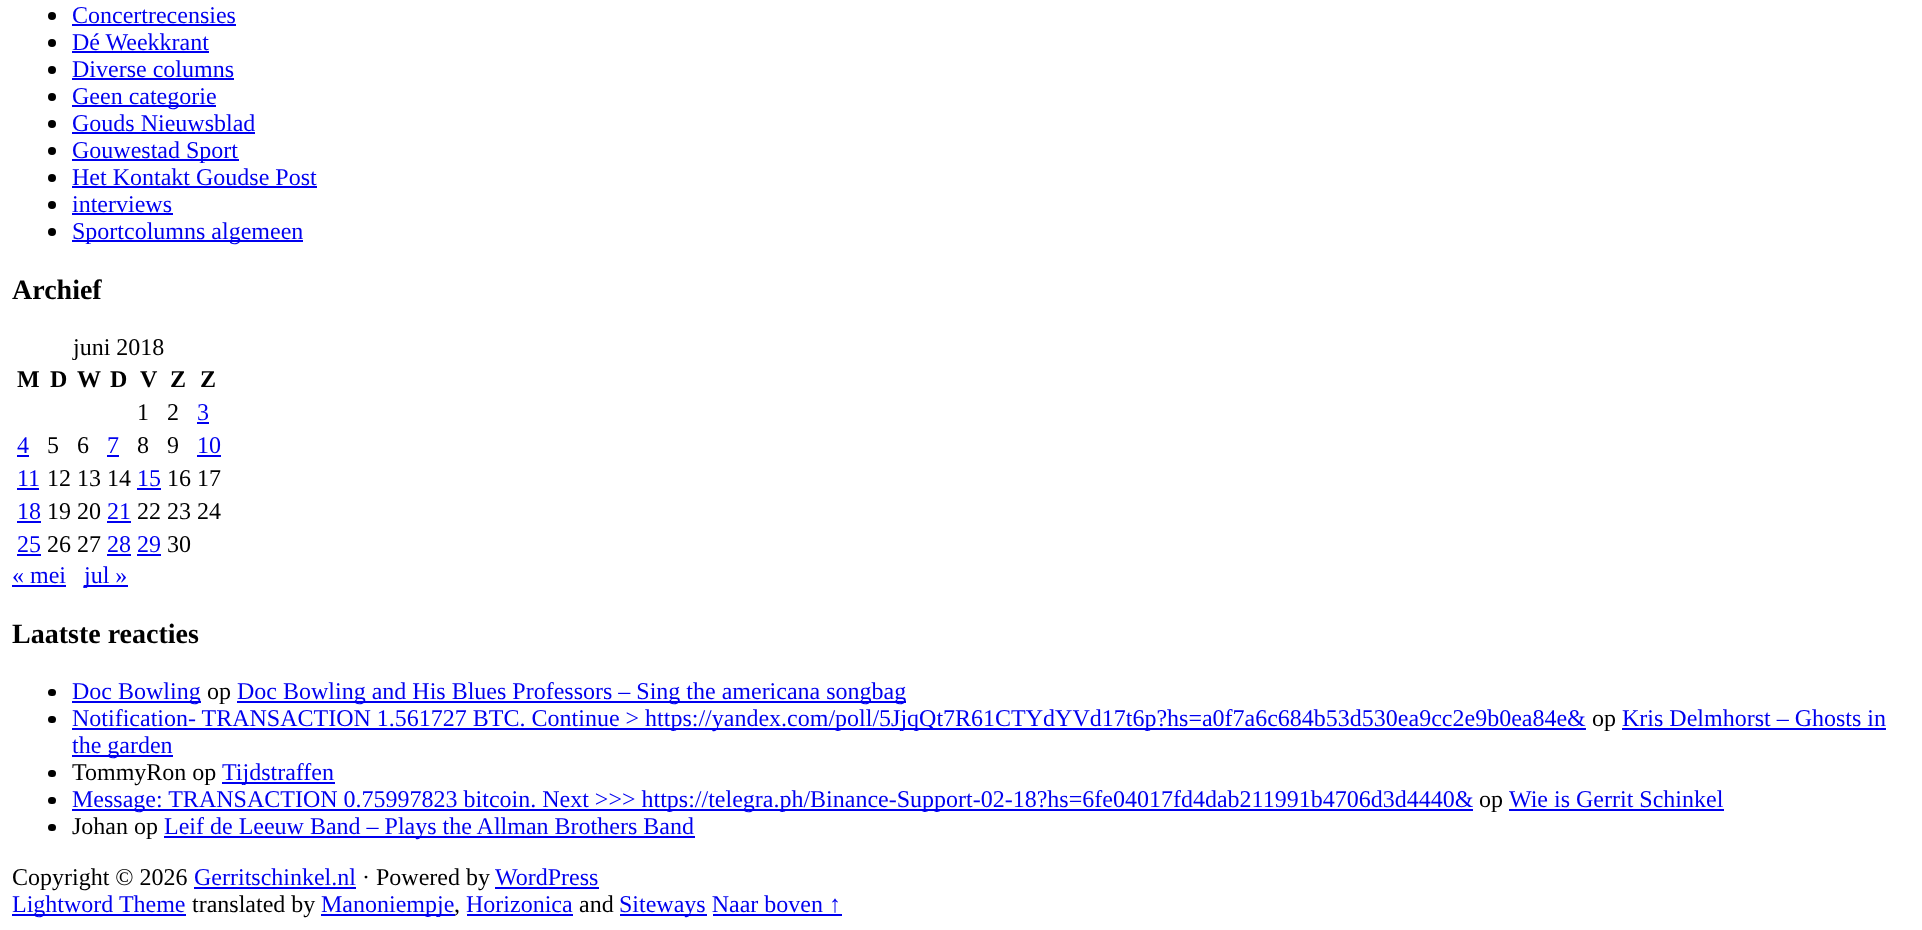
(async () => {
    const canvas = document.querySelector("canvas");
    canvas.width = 1922;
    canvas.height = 930;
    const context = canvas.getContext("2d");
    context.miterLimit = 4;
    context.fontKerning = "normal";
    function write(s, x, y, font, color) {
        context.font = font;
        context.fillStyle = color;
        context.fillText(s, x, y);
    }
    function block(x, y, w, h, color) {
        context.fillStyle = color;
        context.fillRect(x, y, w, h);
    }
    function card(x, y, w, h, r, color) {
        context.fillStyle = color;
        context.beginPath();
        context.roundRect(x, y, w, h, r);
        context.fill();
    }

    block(0, 0, 1922, 930, "rgb(255, 255, 255)");
    context.fillStyle = "rgb(0, 0, 0)";
    context.beginPath();
    context.arc(52, 16, 4, 0, Math.PI * 2);
    context.fill();
    write("Concertrecensies", 72, 23, "24px Liberation Serif", "rgb(0, 0, 238)");
    block(72, 24, 164, 2, "rgb(0, 0, 238)");
    context.fillStyle = "rgb(0, 0, 0)";
    context.beginPath();
    context.arc(52, 43, 4, 0, Math.PI * 2);
    context.fill();
    write("Dé Weekkrant", 72, 50, "24px Liberation Serif", "rgb(0, 0, 238)");
    block(72, 51, 137, 2, "rgb(0, 0, 238)");
    context.fillStyle = "rgb(0, 0, 0)";
    context.beginPath();
    context.arc(52, 70, 4, 0, Math.PI * 2);
    context.fill();
    write("Diverse columns", 72, 77, "24px Liberation Serif", "rgb(0, 0, 238)");
    block(72, 78, 162, 2, "rgb(0, 0, 238)");
    context.fillStyle = "rgb(0, 0, 0)";
    context.beginPath();
    context.arc(52, 97, 4, 0, Math.PI * 2);
    context.fill();
    block(72, 105, 144, 2, "rgb(0, 0, 238)");
    write("Geen categorie", 72, 104, "24px Liberation Serif", "rgb(0, 0, 238)");
    context.fillStyle = "rgb(0, 0, 0)";
    context.beginPath();
    context.arc(52, 124, 4, 0, Math.PI * 2);
    context.fill();
    write("Gouds Nieuwsblad", 72, 131, "24px Liberation Serif", "rgb(0, 0, 238)");
    block(72, 132, 183, 2, "rgb(0, 0, 238)");
    context.fillStyle = "rgb(0, 0, 0)";
    context.beginPath();
    context.arc(52, 151, 4, 0, Math.PI * 2);
    context.fill();
    block(72, 159, 167, 2, "rgb(0, 0, 238)");
    write("Gouwestad Sport", 72, 158, "24px Liberation Serif", "rgb(0, 0, 238)");
    context.fillStyle = "rgb(0, 0, 0)";
    context.beginPath();
    context.arc(52, 178, 4, 0, Math.PI * 2);
    context.fill();
    write("Het Kontakt Goudse Post", 72, 185, "24px Liberation Serif", "rgb(0, 0, 238)");
    block(72, 186, 245, 2, "rgb(0, 0, 238)");
    context.fillStyle = "rgb(0, 0, 0)";
    context.beginPath();
    context.arc(52, 205, 4, 0, Math.PI * 2);
    context.fill();
    write("interviews", 72, 212, "24px Liberation Serif", "rgb(0, 0, 238)");
    block(72, 213, 101, 2, "rgb(0, 0, 238)");
    context.fillStyle = "rgb(0, 0, 0)";
    context.beginPath();
    context.arc(52, 232, 4, 0, Math.PI * 2);
    context.fill();
    block(72, 240, 231, 2, "rgb(0, 0, 238)");
    write("Sportcolumns algemeen", 72, 239, "24px Liberation Serif", "rgb(0, 0, 238)");
    write("Archief", 12, 299, "bold 28px Liberation Serif", "rgb(0, 0, 0)");
    write("juni 2018", 73, 355, "24px Liberation Serif", "rgb(0, 0, 0)");
    write("M", 17, 387, "bold 24px Liberation Serif", "rgb(0, 0, 0)");
    write("D", 50, 387, "bold 24px Liberation Serif", "rgb(0, 0, 0)");
    write("W", 77, 387, "bold 24px Liberation Serif", "rgb(0, 0, 0)");
    write("D", 110, 387, "bold 24px Liberation Serif", "rgb(0, 0, 0)");
    write("V", 140, 387, "bold 24px Liberation Serif", "rgb(0, 0, 0)");
    write("Z", 170, 387, "bold 24px Liberation Serif", "rgb(0, 0, 0)");
    write("Z", 200, 387, "bold 24px Liberation Serif", "rgb(0, 0, 0)");
    write("1", 137, 420, "24px Liberation Serif", "rgb(0, 0, 0)");
    write("2", 167, 420, "24px Liberation Serif", "rgb(0, 0, 0)");
    write("3", 197, 420, "24px Liberation Serif", "rgb(0, 0, 238)");
    block(197, 422, 12, 2, "rgb(0, 0, 238)");
    write("4", 17, 453, "24px Liberation Serif", "rgb(0, 0, 238)");
    block(17, 455, 12, 2, "rgb(0, 0, 238)");
    write("5", 47, 453, "24px Liberation Serif", "rgb(0, 0, 0)");
    write("6", 77, 453, "24px Liberation Serif", "rgb(0, 0, 0)");
    write("7", 107, 453, "24px Liberation Serif", "rgb(0, 0, 238)");
    block(107, 455, 12, 2, "rgb(0, 0, 238)");
    write("8", 137, 453, "24px Liberation Serif", "rgb(0, 0, 0)");
    write("9", 167, 453, "24px Liberation Serif", "rgb(0, 0, 0)");
    write("10", 197, 453, "24px Liberation Serif", "rgb(0, 0, 238)");
    block(197, 455, 24, 2, "rgb(0, 0, 238)");
    write("11", 17, 486, "24px Liberation Serif", "rgb(0, 0, 238)");
    block(17, 488, 22, 2, "rgb(0, 0, 238)");
    write("12 13 14", 47, 486, "24px Liberation Serif", "rgb(0, 0, 0)");
    write("15", 137, 486, "24px Liberation Serif", "rgb(0, 0, 238)");
    block(137, 488, 24, 2, "rgb(0, 0, 238)");
    write("16 17", 167, 486, "24px Liberation Serif", "rgb(0, 0, 0)");
    write("18", 17, 519, "24px Liberation Serif", "rgb(0, 0, 238)");
    block(17, 521, 24, 2, "rgb(0, 0, 238)");
    write("19 20", 47, 519, "24px Liberation Serif", "rgb(0, 0, 0)");
    write("21", 107, 519, "24px Liberation Serif", "rgb(0, 0, 238)");
    block(107, 521, 24, 2, "rgb(0, 0, 238)");
    write("22 23 24", 137, 519, "24px Liberation Serif", "rgb(0, 0, 0)");
    write("25", 17, 552, "24px Liberation Serif", "rgb(0, 0, 238)");
    block(17, 554, 24, 2, "rgb(0, 0, 238)");
    write("26 27", 47, 552, "24px Liberation Serif", "rgb(0, 0, 0)");
    write("28 29", 107, 552, "24px Liberation Serif", "rgb(0, 0, 238)");
    block(107, 554, 24, 2, "rgb(0, 0, 238)");
    write("30", 167, 552, "24px Liberation Serif", "rgb(0, 0, 0)");
    block(137, 554, 24, 2, "rgb(0, 0, 238)");
    write("« mei", 12, 583, "24px Liberation Serif", "rgb(0, 0, 238)");
    block(12, 585, 54, 2, "rgb(0, 0, 238)");
    block(84, 585, 44, 2, "rgb(0, 0, 238)");
    write("jul »", 84, 583, "24px Liberation Serif", "rgb(0, 0, 238)");
    write("Laatste reacties", 12, 643, "bold 28px Liberation Serif", "rgb(0, 0, 0)");
    card(48, 689, 8, 7, 3.5, "rgb(0, 0, 0)");
    block(72, 701, 129, 2, "rgb(0, 0, 238)");
    write("Doc Bowling", 72, 699, "24px Liberation Serif", "rgb(0, 0, 238)");
    write("op", 207, 699, "24px Liberation Serif", "rgb(0, 0, 0)");
    block(237, 701, 669, 2, "rgb(0, 0, 238)");
    write("Doc Bowling and His Blues Professors – Sing the americana songbag", 237, 699, "24px Liberation Serif", "rgb(0, 0, 238)");
    card(48, 716, 8, 7, 3.5, "rgb(0, 0, 0)");
    block(72, 728, 1514, 2, "rgb(0, 0, 238)");
    write("Notification- TRANSACTION 1.561727 BTC. Continue > https://yandex.com/poll/5JjqQt7R61CTYdYVd17t6p?hs=a0f7a6c684b53d530ea9cc2e9b0ea84e&", 72, 726, "24px Liberation Serif", "rgb(0, 0, 238)");
    write("op", 1592, 726, "24px Liberation Serif", "rgb(0, 0, 0)");
    write("Kris Delmhorst – Ghosts in", 1622, 726, "24px Liberation Serif", "rgb(0, 0, 238)");
    block(1622, 728, 264, 2, "rgb(0, 0, 238)");
    block(72, 755, 101, 2, "rgb(0, 0, 238)");
    write("the garden", 72, 753, "24px Liberation Serif", "rgb(0, 0, 238)");
    card(48, 770, 8, 7, 3.5, "rgb(0, 0, 0)");
    write("TommyRon op", 72, 780, "24px Liberation Serif", "rgb(0, 0, 0)");
    block(222, 782, 113, 2, "rgb(0, 0, 238)");
    write("Tijdstraffen", 222, 780, "24px Liberation Serif", "rgb(0, 0, 238)");
    card(48, 797, 8, 7, 3.5, "rgb(0, 0, 0)");
    block(72, 809, 1401, 2, "rgb(0, 0, 238)");
    write("Message: TRANSACTION 0.75997823 bitcoin. Next >>> https://telegra.ph/Binance-Support-02-18?hs=6fe04017fd4dab211991b4706d3d4440&", 72, 807, "24px Liberation Serif", "rgb(0, 0, 238)");
    write("op", 1479, 807, "24px Liberation Serif", "rgb(0, 0, 0)");
    write("Wie is Gerrit Schinkel", 1509, 807, "24px Liberation Serif", "rgb(0, 0, 238)");
    block(1509, 809, 215, 2, "rgb(0, 0, 238)");
    card(48, 824, 8, 7, 3.5, "rgb(0, 0, 0)");
    write("Johan op", 72, 834, "24px Liberation Serif", "rgb(0, 0, 0)");
    block(164, 836, 531, 2, "rgb(0, 0, 238)");
    write("Leif de Leeuw Band – Plays the Allman Brothers Band", 164, 834, "24px Liberation Serif", "rgb(0, 0, 238)");
    write("Copyright © 2026", 12, 885, "24px Liberation Serif", "rgb(0, 0, 0)");
    write("Gerritschinkel.nl", 194, 885, "24px Liberation Serif", "rgb(0, 0, 238)");
    block(194, 887, 162, 2, "rgb(0, 0, 238)");
    write("· Powered by", 362, 885, "24px Liberation Serif", "rgb(0, 0, 0)");
    block(495, 887, 104, 2, "rgb(0, 0, 238)");
    write("WordPress", 495, 885, "24px Liberation Serif", "rgb(0, 0, 238)");
    block(12, 914, 174, 2, "rgb(0, 0, 238)");
    write("Lightword Theme", 12, 912, "24px Liberation Serif", "rgb(0, 0, 238)");
    write("translated by", 192, 912, "24px Liberation Serif", "rgb(0, 0, 0)");
    block(321, 914, 134, 2, "rgb(0, 0, 238)");
    write("Manoniempje", 321, 912, "24px Liberation Serif", "rgb(0, 0, 238)");
    write(",", 454, 912, "24px Liberation Serif", "rgb(0, 0, 0)");
    block(467, 914, 106, 2, "rgb(0, 0, 238)");
    write("Horizonica", 466, 912, "24px Liberation Serif", "rgb(0, 0, 238)");
    write("and", 579, 912, "24px Liberation Serif", "rgb(0, 0, 0)");
    block(620, 914, 87, 2, "rgb(0, 0, 238)");
    write("Siteways Naar boven ↑", 619, 912, "24px Liberation Serif", "rgb(0, 0, 238)");
    block(713, 914, 129, 2, "rgb(0, 0, 238)");
})();
